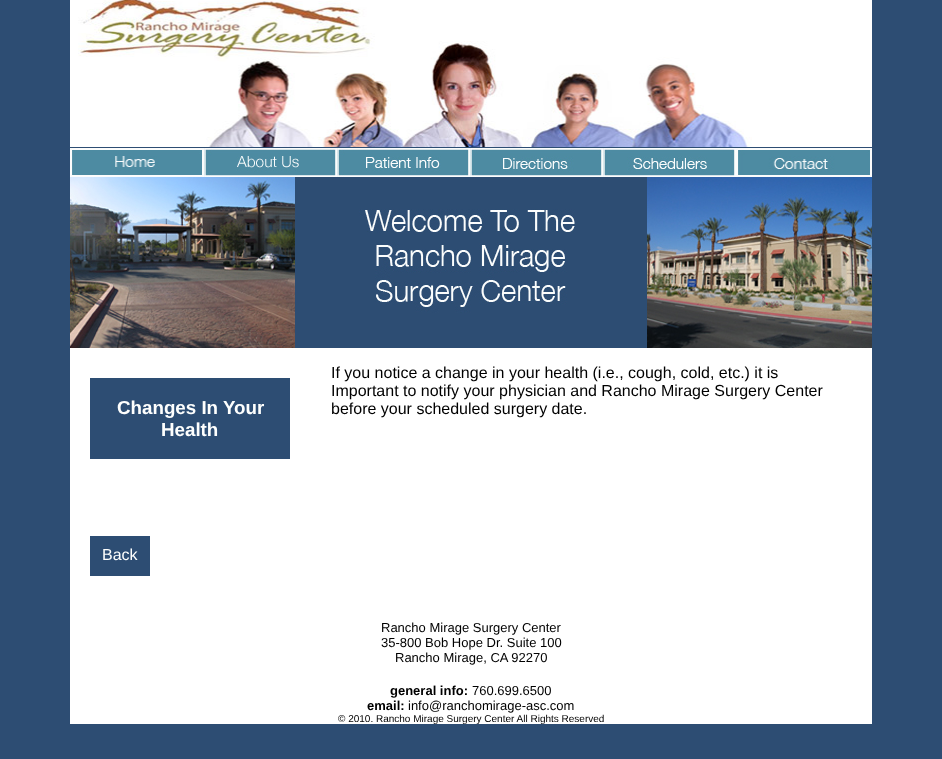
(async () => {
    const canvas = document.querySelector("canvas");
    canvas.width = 942;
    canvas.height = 759;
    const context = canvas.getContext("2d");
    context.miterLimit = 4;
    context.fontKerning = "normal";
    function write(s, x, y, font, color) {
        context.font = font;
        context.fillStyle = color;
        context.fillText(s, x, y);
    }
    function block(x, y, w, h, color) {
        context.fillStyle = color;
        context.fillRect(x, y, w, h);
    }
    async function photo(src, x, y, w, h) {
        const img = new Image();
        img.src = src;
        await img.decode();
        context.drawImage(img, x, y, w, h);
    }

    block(0, 0, 942, 759, "rgb(45, 77, 115)");
    await photo("media/1.png", 70, 0, 802, 147);
    await photo("media/2.png", 70, 148, 134, 29);
    await photo("media/3.png", 204, 148, 133, 29);
    await photo("media/4.png", 337, 148, 133, 29);
    await photo("media/5.png", 470, 148, 133, 29);
    await photo("media/6.png", 603, 148, 133, 29);
    await photo("media/7.png", 736, 148, 136, 29);
    block(70, 348, 802, 376, "rgb(255, 255, 255)");
    await photo("media/8.png", 70, 177, 225, 171);
    await photo("media/9.png", 295, 177, 352, 171);
    await photo("media/10.png", 647, 177, 225, 171);
    block(90, 378, 200, 81, "rgb(45, 77, 115)");
    write("Changes In Your", 117, 414, "bold 18.75px Liberation Sans", "rgb(254, 255, 254)");
    write("Health", 161, 436, "bold 18.75px Liberation Sans", "rgb(254, 255, 254)");
    write("If you notice a change in your health (i.e., cough, cold, etc.) it is", 331, 378, "16px Liberation Sans", "rgb(0, 0, 0)");
    write("Important to notify your physician and Rancho Mirage Surgery Center", 331, 396, "16px Liberation Sans", "rgb(0, 0, 0)");
    write("before your scheduled surgery date.", 331, 414, "16px Liberation Sans", "rgb(0, 0, 0)");
    block(90, 536, 60, 40, "rgb(45, 77, 115)");
    write("Back", 102, 560, "16px Liberation Sans", "rgb(254, 255, 254)");
    write("Rancho Mirage Surgery Center", 381, 632, "13px Liberation Sans", "rgb(0, 0, 0)");
    write("35-800 Bob Hope Dr. Suite 100", 381, 647, "13px Liberation Sans", "rgb(0, 0, 0)");
    write("Rancho Mirage, CA 92270", 395, 662, "13px Liberation Sans", "rgb(0, 0, 0)");
    write("general info:", 390, 695, "bold 13px Liberation Sans", "rgb(0, 0, 0)");
    write("760.699.6500", 472, 695, "13px Liberation Sans", "rgb(0, 0, 0)");
    write("email:", 367, 710, "bold 13px Liberation Sans", "rgb(0, 0, 0)");
    write("info@ranchomirage-asc.com", 408, 710, "13px Liberation Sans", "rgb(0, 0, 0)");
    write("© 2010. Rancho Mirage Surgery Center All Rights Reserved", 338, 722, "10px Liberation Sans", "rgb(0, 0, 0)");
})();
